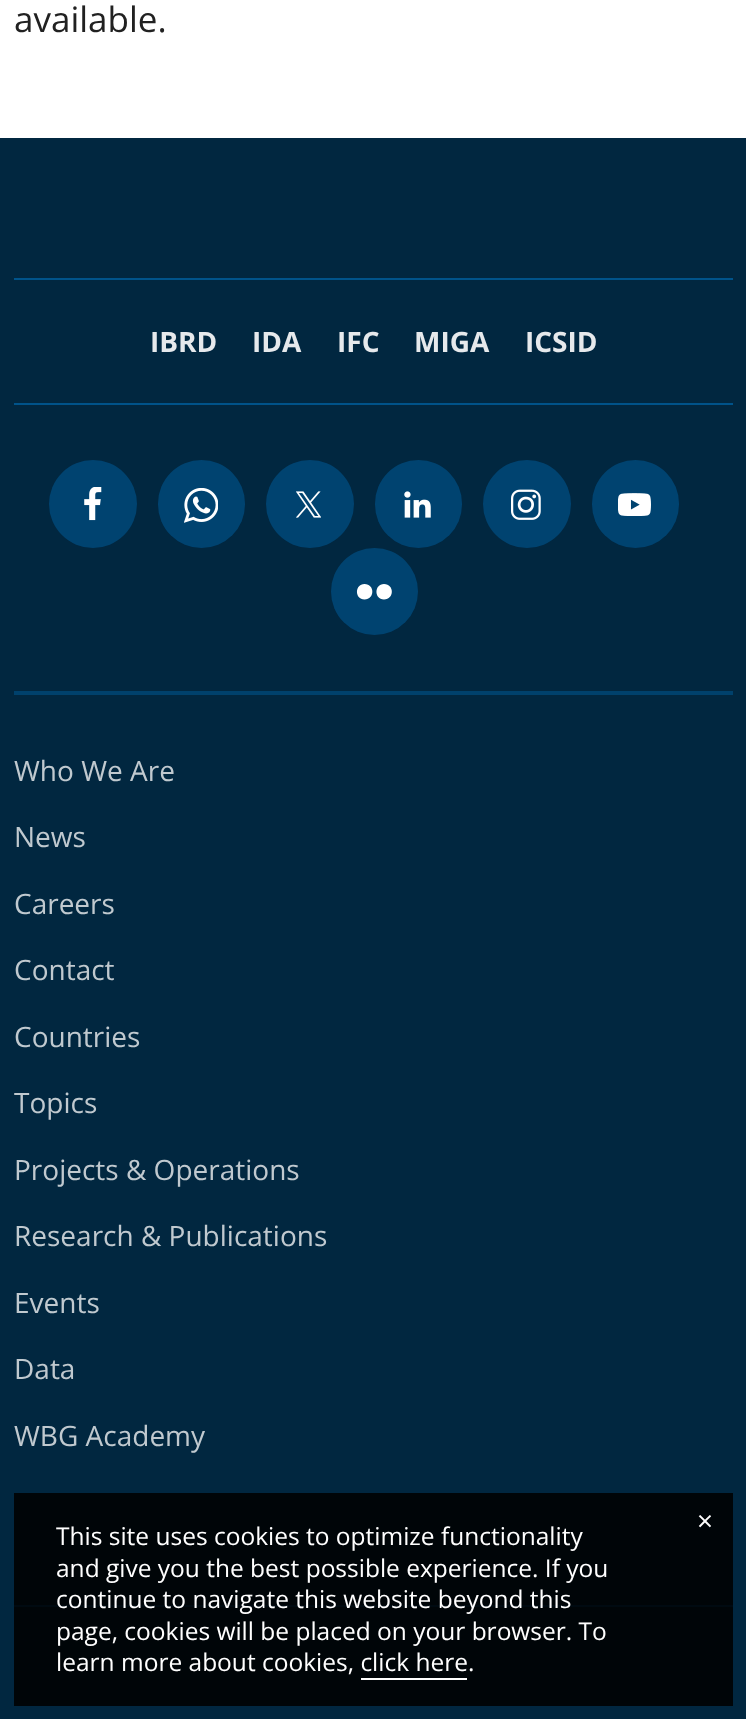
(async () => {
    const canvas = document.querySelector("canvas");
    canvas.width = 746;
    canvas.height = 1719;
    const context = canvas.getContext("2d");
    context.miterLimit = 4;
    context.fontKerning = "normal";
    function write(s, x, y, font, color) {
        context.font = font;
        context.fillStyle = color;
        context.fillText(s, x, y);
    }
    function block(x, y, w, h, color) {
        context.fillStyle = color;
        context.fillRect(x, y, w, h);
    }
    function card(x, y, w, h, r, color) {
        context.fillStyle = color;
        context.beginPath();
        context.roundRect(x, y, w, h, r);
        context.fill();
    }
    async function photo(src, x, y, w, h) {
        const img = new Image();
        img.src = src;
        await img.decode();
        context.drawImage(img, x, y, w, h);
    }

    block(0, 0, 746, 1719, "rgb(255, 255, 255)");
    write("available.", 14, 32, "35px Open Sans", "rgb(33, 33, 33)");
    block(0, 138, 746, 1581, "rgb(1, 39, 64)");
    block(14, 691, 719, 4, "rgb(0, 65, 108)");
    block(14, 278, 719, 2, "rgb(0, 83, 138)");
    write("IBRD", 150, 352, "bold 28px Open Sans", "rgb(230, 233, 236)");
    write("IDA", 252, 352, "bold 28px Open Sans", "rgb(230, 233, 236)");
    write("IFC", 337, 352, "bold 28px Open Sans", "rgb(230, 233, 236)");
    write("MIGA", 414, 352, "bold 28px Open Sans", "rgb(230, 233, 236)");
    write("ICSID", 525, 352, "bold 28px Open Sans", "rgb(230, 233, 236)");
    block(14, 403, 719, 2, "rgb(0, 83, 138)");
    context.fillStyle = "rgb(0, 67, 112)";
    context.beginPath();
    context.arc(93, 504, 44, 0, Math.PI * 2);
    context.fill();
    await photo("media/1.png", 84, 487, 18, 34);
    card(158, 460, 87, 88, 43.5, "rgb(0, 67, 112)");
    await photo("media/2.png", 184, 488, 34, 35);
    context.beginPath();
    context.arc(310, 504, 44, 0, Math.PI * 2);
    context.fill();
    await photo("media/3.png", 296, 491, 25, 27);
    card(375, 460, 87, 88, 43.5, "rgb(0, 67, 112)");
    await photo("media/4.png", 404, 491, 27, 27);
    context.beginPath();
    context.arc(527, 504, 44, 0, Math.PI * 2);
    context.fill();
    await photo("media/5.png", 511, 489, 30, 31);
    card(592, 460, 87, 88, 43.5, "rgb(0, 67, 112)");
    await photo("media/6.png", 618, 493, 33, 23);
    context.beginPath();
    context.arc(374.5, 591.5, 43.5, 0, Math.PI * 2);
    context.fill();
    context.fillStyle = "rgb(255, 255, 255)";
    context.beginPath();
    context.moveTo(364.5, 584);
    context.bezierCurveTo(354.5, 584, 354.5, 599.5, 364.5, 599.5);
    context.bezierCurveTo(375, 599.5, 375, 584, 364.5, 584);
    context.closePath();
    context.moveTo(384, 584);
    context.bezierCurveTo(374, 584, 374, 599.5, 384, 599.5);
    context.bezierCurveTo(394.5, 599.5, 394.5, 584, 384, 584);
    context.closePath();
    context.fill();
    write("Who We Are", 14, 781, "28px Open Sans", "rgb(192, 201, 207)");
    write("News", 14, 847, "28px Open Sans", "rgb(192, 201, 207)");
    write("Careers", 14, 914, "28px Open Sans", "rgb(192, 201, 207)");
    write("Contact", 14, 980, "28px Open Sans", "rgb(192, 201, 207)");
    write("Countries", 14, 1047, "28px Open Sans", "rgb(192, 201, 207)");
    write("Topics", 14, 1113, "28px Open Sans", "rgb(192, 201, 207)");
    write("Projects & Operations", 14, 1180, "28px Open Sans", "rgb(192, 201, 207)");
    write("Research & Publications", 14, 1246, "28px Open Sans", "rgb(192, 201, 207)");
    write("Events", 14, 1313, "28px Open Sans", "rgb(192, 201, 207)");
    write("Data", 14, 1379, "28px Open Sans", "rgb(192, 201, 207)");
    write("WBG Academy", 14, 1446, "28px Open Sans", "rgb(192, 201, 207)");
    block(14, 1605, 719, 2, "rgb(0, 79, 131)");
    block(14, 1493, 719, 213, "rgba(0, 0, 0, 0.87)");
    write("×", 697, 1531, "28px Open Sans", "rgb(255, 255, 255)");
    write("This site uses cookies to optimize functionality", 56, 1545, "24.5px Open Sans", "rgb(255, 255, 255)");
    write("and give you the best possible experience. If you", 56, 1577, "24.5px Open Sans", "rgb(255, 255, 255)");
    write("continue to navigate this website beyond this", 56, 1608, "24.5px Open Sans", "rgb(255, 255, 255)");
    write("page, cookies will be placed on your browser. To", 56, 1640, "24.5px Open Sans", "rgb(255, 255, 255)");
    write("learn more about cookies, click here.", 56, 1671, "24.5px Open Sans", "rgb(255, 255, 255)");
    block(361, 1678, 106, 2, "rgb(255, 255, 255)");
})();
